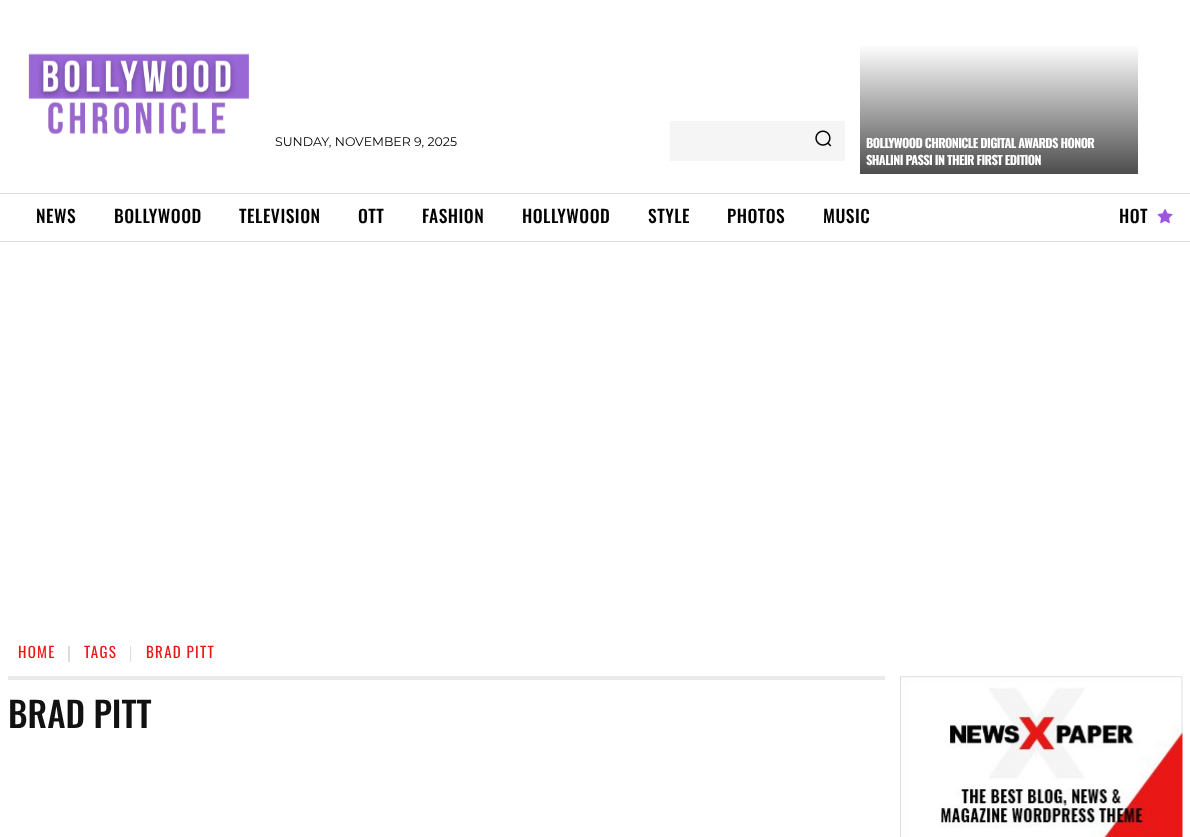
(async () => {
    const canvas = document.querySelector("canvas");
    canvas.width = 1190;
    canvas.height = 837;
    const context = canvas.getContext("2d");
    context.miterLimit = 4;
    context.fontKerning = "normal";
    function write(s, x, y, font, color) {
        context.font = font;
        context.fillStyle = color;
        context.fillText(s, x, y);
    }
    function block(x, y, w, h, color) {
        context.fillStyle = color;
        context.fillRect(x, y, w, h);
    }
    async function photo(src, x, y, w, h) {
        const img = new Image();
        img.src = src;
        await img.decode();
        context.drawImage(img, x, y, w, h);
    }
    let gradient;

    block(0, 0, 1190, 837, "rgb(255, 255, 255)");
    await photo("media/1.png", 28, 53, 221, 81);
    write("SUNDAY, NOVEMBER 9, 2025", 275, 146, "12.5px Montserrat", "rgb(0, 0, 0)");
    block(670, 121, 175, 40, "rgb(245, 245, 245)");
    await photo("media/2.png", 815, 130, 17, 17);
    gradient = context.createLinearGradient(999, 174, 999, 44);
    gradient.addColorStop(0, "rgb(77, 77, 77)");
    gradient.addColorStop(1, "rgb(255, 255, 255)");
    context.fillStyle = gradient;
    context.fillRect(860, 46, 278, 128);
    context.letterSpacing = "-0.6px";
    write("BOLLYWOOD CHRONICLE DIGITAL AWARDS HONOR", 866, 148, "bold 12.5px Oswald", "rgb(255, 255, 255)");
    write("SHALINI PASSI IN THEIR FIRST EDITION", 866, 165, "bold 12.5px Oswald", "rgb(255, 255, 255)");
    block(0, 193, 1190, 1, "rgb(221, 221, 221)");
    block(0, 241, 1190, 1, "rgb(221, 221, 221)");
    context.letterSpacing = "0.5px";
    write("NEWS", 36, 223, "500 17.5px Oswald", "rgb(0, 0, 0)");
    write("BOLLYWOOD", 114, 223, "500 17.5px Oswald", "rgb(0, 0, 0)");
    write("TELEVISION", 239, 223, "500 17.5px Oswald", "rgb(0, 0, 0)");
    write("OTT", 358, 223, "500 17.5px Oswald", "rgb(0, 0, 0)");
    write("FASHION", 422, 223, "500 17.5px Oswald", "rgb(0, 0, 0)");
    write("HOLLYWOOD", 522, 223, "500 17.5px Oswald", "rgb(0, 0, 0)");
    write("STYLE", 648, 223, "500 17.5px Oswald", "rgb(0, 0, 0)");
    write("PHOTOS", 727, 223, "500 17.5px Oswald", "rgb(0, 0, 0)");
    write("MUSIC", 823, 223, "500 17.5px Oswald", "rgb(0, 0, 0)");
    write("HOT", 1119, 223, "500 17.5px Oswald", "rgb(0, 0, 0)");
    await photo("media/3.png", 1157, 208, 16, 16);
    context.letterSpacing = "1.25px";
    write("HOME", 18, 658, "15px Oswald", "rgb(234, 23, 23)");
    block(68, 646, 2, 16, "rgb(221, 221, 221)");
    write("TAGS", 84, 658, "15px Oswald", "rgb(234, 23, 23)");
    block(130, 646, 1, 16, "rgb(221, 221, 221)");
    write("BRAD PITT", 146, 658, "15px Oswald", "rgb(234, 23, 23)");
    block(8, 676, 877, 4, "rgb(234, 234, 234)");
    context.letterSpacing = "0px";
    write("BRAD PITT", 8, 728, "500 35px Oswald", "rgb(17, 17, 17)");
    await photo("media/4.png", 900, 676, 283, 161);
})();
